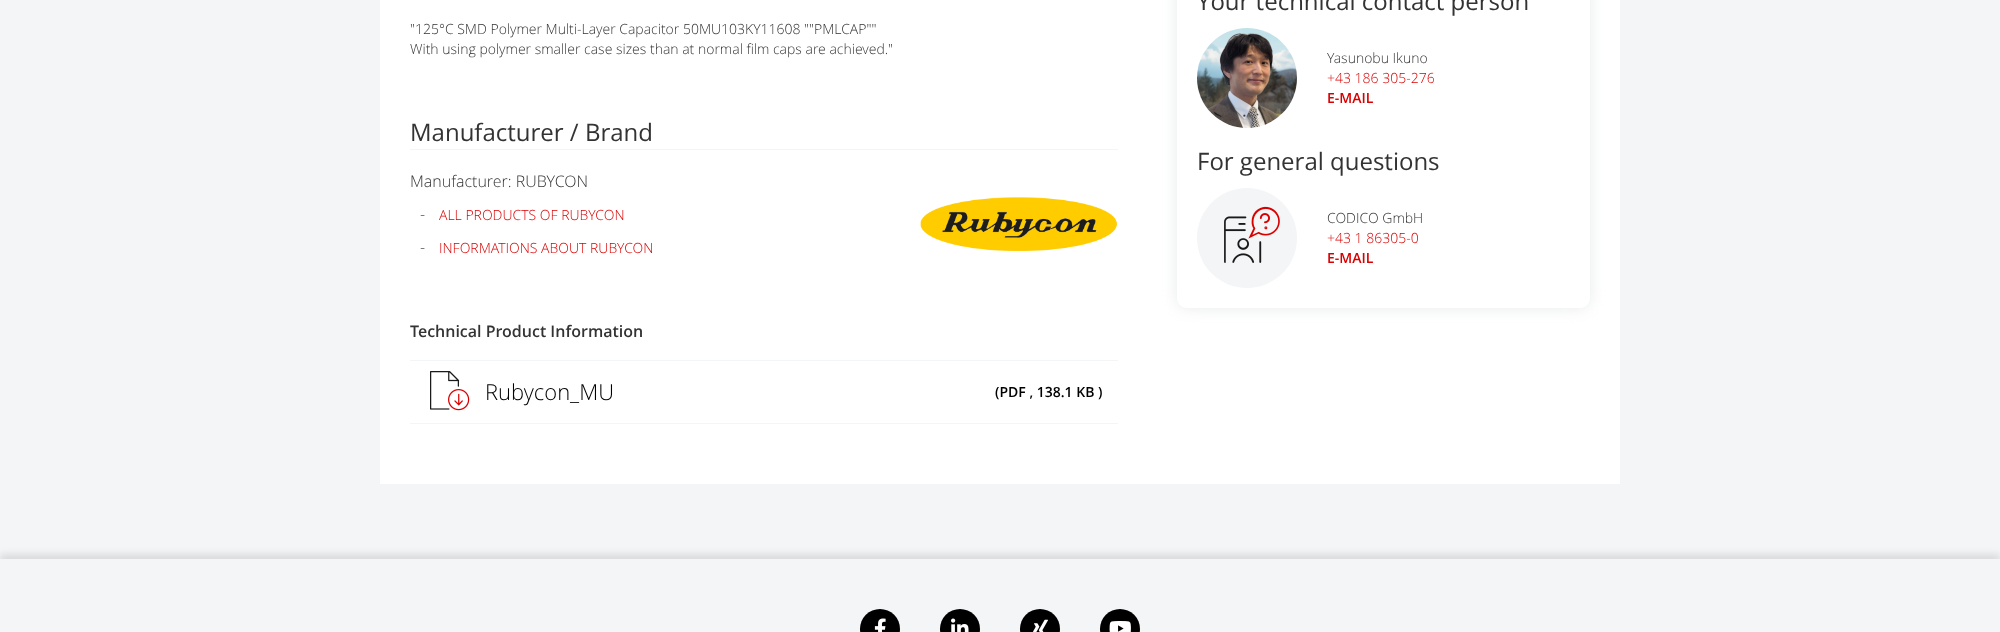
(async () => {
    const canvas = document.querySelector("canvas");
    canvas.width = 2000;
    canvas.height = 632;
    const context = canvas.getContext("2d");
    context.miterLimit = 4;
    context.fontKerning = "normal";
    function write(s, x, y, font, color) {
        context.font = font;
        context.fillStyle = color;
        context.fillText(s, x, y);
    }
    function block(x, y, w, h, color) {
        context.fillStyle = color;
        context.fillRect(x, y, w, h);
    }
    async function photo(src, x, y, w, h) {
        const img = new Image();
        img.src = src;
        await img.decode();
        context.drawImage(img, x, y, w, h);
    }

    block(0, 0, 2000, 632, "rgb(244, 245, 247)");
    block(380, 0, 1240, 484, "rgb(255, 255, 255)");
    write("\"125°C SMD Polymer Multi-Layer Capacitor 50MU103KY11608 \"\"PMLCAP\"\"", 410, 34, "300 14px Open Sans", "rgb(51, 51, 51)");
    write("With using polymer smaller case sizes than at normal film caps are achieved.\"", 410, 54, "300 14px Open Sans", "rgb(51, 51, 51)");
    context.save();
    context.beginPath();
    context.moveTo(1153, 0);
    context.lineTo(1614, 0);
    context.lineTo(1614, 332);
    context.lineTo(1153, 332);
    context.closePath();
    context.moveTo(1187, -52);
    context.lineTo(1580, -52);
    context.bezierCurveTo(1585.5, -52, 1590, -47.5, 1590, -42);
    context.lineTo(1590, 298);
    context.bezierCurveTo(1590, 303.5, 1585.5, 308, 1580, 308);
    context.lineTo(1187, 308);
    context.bezierCurveTo(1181.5, 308, 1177, 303.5, 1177, 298);
    context.lineTo(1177, -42);
    context.bezierCurveTo(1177, -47.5, 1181.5, -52, 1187, -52);
    context.closePath();
    context.clip("evenodd");
    context.fillStyle = "rgb(233, 234, 235)";
    context.filter = "blur(7.5px)";
    context.beginPath();
    context.roundRect(1177, -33, 413, 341, 10);
    context.fill();
    context.filter = "none";
    context.restore();
    write("Your technical contact person", 1197, 10, "24px Open Sans", "rgb(51, 51, 51)");
    await photo("media/1.png", 1197, 28, 100, 100);
    write("Yasunobu Ikuno", 1327, 63, "300 14px Open Sans", "rgb(51, 51, 51)");
    write("+43 186 305-276", 1327, 83, "300 14px Open Sans", "rgb(217, 0, 0)");
    write("E-MAIL", 1327, 103, "600 14px Open Sans", "rgb(217, 0, 0)");
    write("For general questions", 1197, 170, "24px Open Sans", "rgb(51, 51, 51)");
    context.fillStyle = "rgb(244, 245, 247)";
    context.beginPath();
    context.arc(1247, 238, 50, 0, Math.PI * 2);
    context.fill();
    await photo("media/2.png", 1224, 206, 56, 57);
    write("CODICO GmbH", 1327, 223, "300 14px Open Sans", "rgb(51, 51, 51)");
    write("+43 1 86305-0", 1327, 243, "300 14px Open Sans", "rgb(217, 0, 0)");
    write("E-MAIL", 1327, 263, "600 14px Open Sans", "rgb(217, 0, 0)");
    block(410, 149, 708, 1, "rgb(244, 245, 247)");
    write("Manufacturer / Brand", 410, 141, "24px Open Sans", "rgb(51, 51, 51)");
    write("Manufacturer: RUBYCON", 410, 187, "300 16px Open Sans", "rgb(51, 51, 51)");
    write("-", 420, 220, "300 16px Open Sans", "rgb(51, 51, 51)");
    write("ALL PRODUCTS OF RUBYCON", 439, 220, "300 14px Open Sans", "rgb(217, 0, 0)");
    write("-", 420, 253, "300 16px Open Sans", "rgb(51, 51, 51)");
    write("INFORMATIONS ABOUT RUBYCON", 439, 253, "300 14px Open Sans", "rgb(217, 0, 0)");
    await photo("media/3.png", 920, 197, 197, 54);
    write("Technical Product Information", 410, 337, "600 16px Open Sans", "rgb(51, 51, 51)");
    block(410, 360, 708, 1, "rgb(244, 245, 247)");
    block(410, 423, 708, 1, "rgb(244, 245, 247)");
    await photo("media/4.png", 430, 371, 40, 40);
    write("Rubycon_MU", 485, 400, "300 22px Open Sans", "rgb(0, 0, 0)");
    write("(PDF , 138.1 KB )", 995, 397, "600 14px Open Sans", "rgb(0, 0, 0)");
    context.fillStyle = "rgba(0, 0, 0, 0.1)";
    context.filter = "blur(3.5px)";
    context.beginPath();
    context.rect(0, 554, 2000, 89);
    context.fill();
    context.filter = "none";
    block(0, 559, 2000, 73, "rgb(244, 245, 247)");
    context.fillStyle = "rgb(0, 0, 0)";
    context.beginPath();
    context.arc(880, 629, 20, 0, Math.PI * 2);
    context.fill();
    await photo("media/5.png", 874, 618, 12, 14);
    context.beginPath();
    context.arc(960, 629, 20, 0, Math.PI * 2);
    context.fill();
    await photo("media/6.png", 951, 618, 18, 14);
    context.beginPath();
    context.arc(1040, 629, 20, 0, Math.PI * 2);
    context.fill();
    await photo("media/7.png", 1033, 619, 15, 13);
    context.beginPath();
    context.arc(1120, 629, 20, 0, Math.PI * 2);
    context.fill();
    await photo("media/8.png", 1109, 621, 22, 11);
})();
